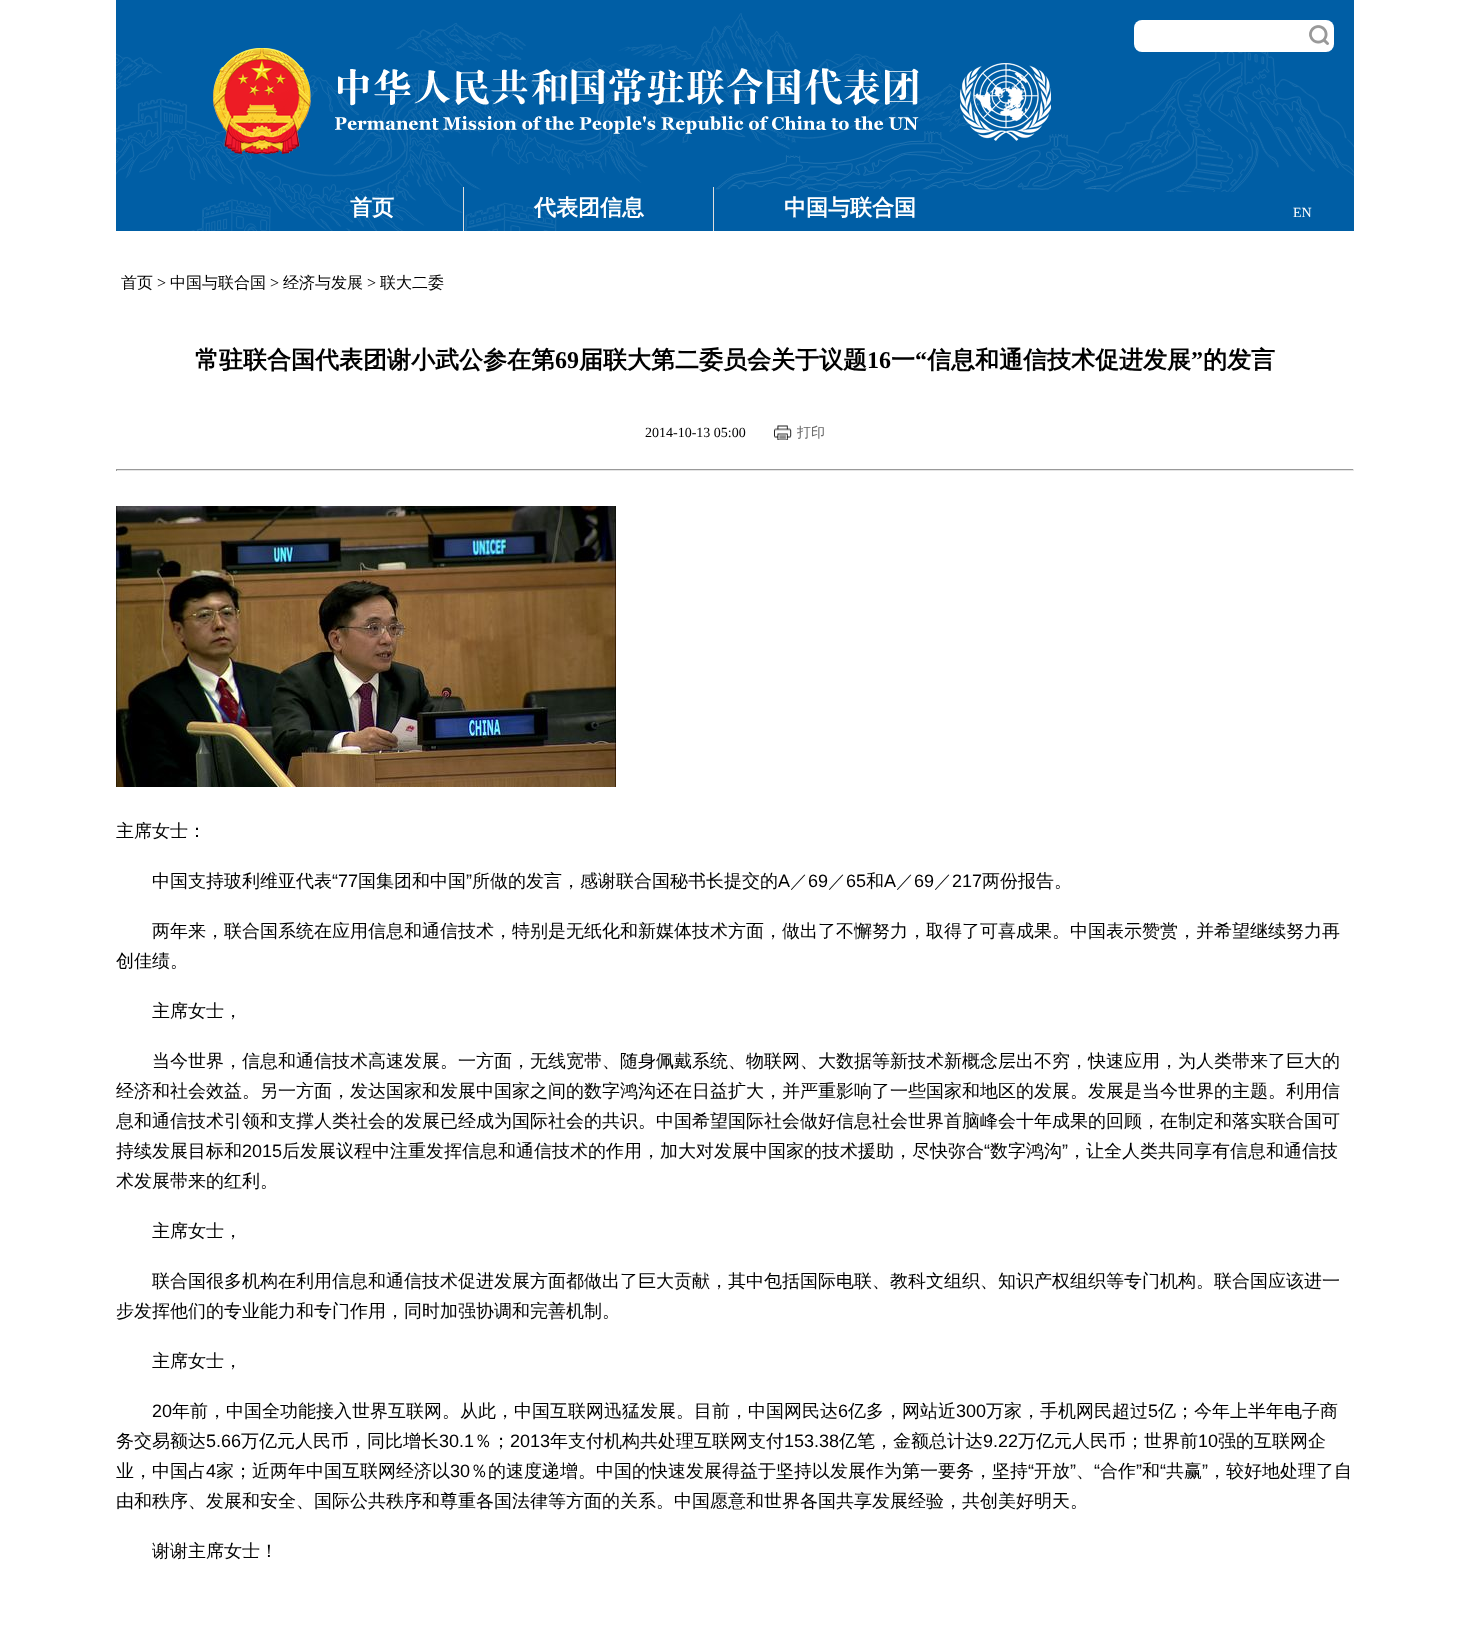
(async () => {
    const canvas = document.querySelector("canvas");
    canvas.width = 1470;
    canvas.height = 1627;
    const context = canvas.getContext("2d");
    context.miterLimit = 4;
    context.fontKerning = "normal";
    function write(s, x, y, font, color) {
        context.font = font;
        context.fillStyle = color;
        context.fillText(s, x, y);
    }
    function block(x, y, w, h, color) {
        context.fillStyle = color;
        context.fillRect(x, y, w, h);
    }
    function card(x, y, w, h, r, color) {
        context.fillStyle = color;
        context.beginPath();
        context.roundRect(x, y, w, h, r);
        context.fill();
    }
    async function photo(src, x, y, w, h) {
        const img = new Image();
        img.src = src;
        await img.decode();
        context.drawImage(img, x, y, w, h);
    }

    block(0, 0, 1470, 1627, "rgb(255, 255, 255)");
    await photo("media/1.png", 116, 0, 1238, 231);
    card(1134, 20, 200, 32, 8, "rgb(255, 255, 255)");
    await photo("media/2.png", 1309, 25, 20, 20);
    write("首页", 350, 215, "bold 22px WenQuanYi Zen Hei", "rgb(255, 255, 255)");
    block(463, 187, 1, 44, "rgb(221, 221, 221)");
    write("代表团信息", 534, 215, "bold 22px WenQuanYi Zen Hei", "rgb(255, 255, 255)");
    block(713, 187, 1, 44, "rgb(221, 221, 221)");
    write("中国与联合国", 784, 215, "bold 22px WenQuanYi Zen Hei", "rgb(255, 255, 255)");
    write("EN", 1293, 217, "14px Liberation Serif", "rgb(255, 255, 255)");
    write("首页", 121, 288, "500 16px WenQuanYi Zen Hei", "rgb(0, 0, 0)");
    write(">", 157, 288, "16px Liberation Serif", "rgb(0, 0, 0)");
    write("中国与联合国", 170, 288, "500 16px WenQuanYi Zen Hei", "rgb(0, 0, 0)");
    write(">", 270, 288, "16px Liberation Serif", "rgb(0, 0, 0)");
    write("经济与发展", 283, 288, "500 16px WenQuanYi Zen Hei", "rgb(0, 0, 0)");
    write(">", 367, 288, "16px Liberation Serif", "rgb(0, 0, 0)");
    write("联大二委", 380, 288, "500 16px WenQuanYi Zen Hei", "rgb(0, 0, 0)");
    write("常驻联合国代表团谢小武公参在第", 195, 368, "bold 24px WenQuanYi Zen Hei", "rgb(0, 0, 0)");
    write("69", 555, 368, "bold 24px Liberation Serif", "rgb(0, 0, 0)");
    write("届联大第二委员会关于议题", 579, 368, "bold 24px WenQuanYi Zen Hei", "rgb(0, 0, 0)");
    write("16", 867, 368, "bold 24px Liberation Serif", "rgb(0, 0, 0)");
    write("一", 891, 368, "bold 24px WenQuanYi Zen Hei", "rgb(0, 0, 0)");
    write("“", 915, 368, "bold 24px Liberation Serif", "rgb(0, 0, 0)");
    write("信息和通信技术促进发展", 927, 368, "bold 24px WenQuanYi Zen Hei", "rgb(0, 0, 0)");
    write("”", 1191, 368, "bold 24px Liberation Serif", "rgb(0, 0, 0)");
    write("的发言", 1203, 368, "bold 24px WenQuanYi Zen Hei", "rgb(0, 0, 0)");
    write("2014-10-13 05:00", 645, 437, "14px Liberation Serif", "rgb(0, 0, 0)");
    await photo("media/3.png", 774, 425, 18, 15);
    write("打印", 797, 437, "500 14px WenQuanYi Zen Hei", "rgb(102, 102, 102)");
    block(116, 469, 1238, 1, "rgb(153, 153, 153)");
    block(1353, 469, 1, 2, "rgb(229, 229, 229)");
    block(116, 470, 1238, 1, "rgb(229, 229, 229)");
    block(116, 469, 1, 2, "rgb(153, 153, 153)");
    await photo("media/4.png", 116, 506, 500, 281);
    write("主席女士：", 116, 837, "500 18px WenQuanYi Zen Hei", "rgb(0, 0, 0)");
    write("中国支持玻利维亚代表", 152, 887, "500 18px WenQuanYi Zen Hei", "rgb(0, 0, 0)");
    write("“77", 332, 887, "18px Liberation Sans", "rgb(0, 0, 0)");
    write("国集团和中国", 358, 887, "500 18px WenQuanYi Zen Hei", "rgb(0, 0, 0)");
    write("”", 466, 887, "18px Liberation Sans", "rgb(0, 0, 0)");
    write("所做的发言，感谢联合国秘书长提交的", 472, 887, "500 18px WenQuanYi Zen Hei", "rgb(0, 0, 0)");
    write("A", 778, 887, "18px Liberation Sans", "rgb(0, 0, 0)");
    write("／", 790, 887, "500 18px WenQuanYi Zen Hei", "rgb(0, 0, 0)");
    write("69", 808, 887, "18px Liberation Sans", "rgb(0, 0, 0)");
    write("／", 828, 887, "500 18px WenQuanYi Zen Hei", "rgb(0, 0, 0)");
    write("65", 846, 887, "18px Liberation Sans", "rgb(0, 0, 0)");
    write("和", 866, 887, "500 18px WenQuanYi Zen Hei", "rgb(0, 0, 0)");
    write("A", 884, 887, "18px Liberation Sans", "rgb(0, 0, 0)");
    write("／", 896, 887, "500 18px WenQuanYi Zen Hei", "rgb(0, 0, 0)");
    write("69", 914, 887, "18px Liberation Sans", "rgb(0, 0, 0)");
    write("／", 934, 887, "500 18px WenQuanYi Zen Hei", "rgb(0, 0, 0)");
    write("217", 952, 887, "18px Liberation Sans", "rgb(0, 0, 0)");
    write("两份报告。", 982, 887, "500 18px WenQuanYi Zen Hei", "rgb(0, 0, 0)");
    write("两年来，联合国系统在应用信息和通信技术，特别是无纸化和新媒体技术方面，做出了不懈努力，取得了可喜成果。中国表示赞赏，并希望继续努力再", 152, 937, "500 18px WenQuanYi Zen Hei", "rgb(0, 0, 0)");
    write("创佳绩。", 116, 967, "500 18px WenQuanYi Zen Hei", "rgb(0, 0, 0)");
    write("主席女士，", 152, 1017, "500 18px WenQuanYi Zen Hei", "rgb(0, 0, 0)");
    write("当今世界，信息和通信技术高速发展。一方面，无线宽带、随身佩戴系统、物联网、大数据等新技术新概念层出不穷，快速应用，为人类带来了巨大的", 152, 1067, "500 18px WenQuanYi Zen Hei", "rgb(0, 0, 0)");
    write("经济和社会效益。另一方面，发达国家和发展中国家之间的数字鸿沟还在日益扩大，并严重影响了一些国家和地区的发展。发展是当今世界的主题。利用信", 116, 1097, "500 18px WenQuanYi Zen Hei", "rgb(0, 0, 0)");
    write("息和通信技术引领和支撑人类社会的发展已经成为国际社会的共识。中国希望国际社会做好信息社会世界首脑峰会十年成果的回顾，在制定和落实联合国可", 116, 1127, "500 18px WenQuanYi Zen Hei", "rgb(0, 0, 0)");
    write("持续发展目标和", 116, 1157, "500 18px WenQuanYi Zen Hei", "rgb(0, 0, 0)");
    write("2015", 242, 1157, "18px Liberation Sans", "rgb(0, 0, 0)");
    write("后发展议程中注重发挥信息和通信技术的作用，加大对发展中国家的技术援助，尽快弥合", 282, 1157, "500 18px WenQuanYi Zen Hei", "rgb(0, 0, 0)");
    write("“", 984, 1157, "18px Liberation Sans", "rgb(0, 0, 0)");
    write("数字鸿沟", 990, 1157, "500 18px WenQuanYi Zen Hei", "rgb(0, 0, 0)");
    write("”", 1062, 1157, "18px Liberation Sans", "rgb(0, 0, 0)");
    write("，让全人类共同享有信息和通信技", 1068, 1157, "500 18px WenQuanYi Zen Hei", "rgb(0, 0, 0)");
    write("术发展带来的红利。", 116, 1187, "500 18px WenQuanYi Zen Hei", "rgb(0, 0, 0)");
    write("主席女士，", 152, 1237, "500 18px WenQuanYi Zen Hei", "rgb(0, 0, 0)");
    write("联合国很多机构在利用信息和通信技术促进发展方面都做出了巨大贡献，其中包括国际电联、教科文组织、知识产权组织等专门机构。联合国应该进一", 152, 1287, "500 18px WenQuanYi Zen Hei", "rgb(0, 0, 0)");
    write("步发挥他们的专业能力和专门作用，同时加强协调和完善机制。", 116, 1317, "500 18px WenQuanYi Zen Hei", "rgb(0, 0, 0)");
    write("主席女士，", 152, 1367, "500 18px WenQuanYi Zen Hei", "rgb(0, 0, 0)");
    write("20", 152, 1417, "18px Liberation Sans", "rgb(0, 0, 0)");
    write("年前，中国全功能接入世界互联网。从此，中国互联网迅猛发展。目前，中国网民达", 172, 1417, "500 18px WenQuanYi Zen Hei", "rgb(0, 0, 0)");
    write("6", 838, 1417, "18px Liberation Sans", "rgb(0, 0, 0)");
    write("亿多，网站近", 848, 1417, "500 18px WenQuanYi Zen Hei", "rgb(0, 0, 0)");
    write("300", 956, 1417, "18px Liberation Sans", "rgb(0, 0, 0)");
    write("万家，手机网民超过", 986, 1417, "500 18px WenQuanYi Zen Hei", "rgb(0, 0, 0)");
    write("5", 1148, 1417, "18px Liberation Sans", "rgb(0, 0, 0)");
    write("亿；今年上半年电子商", 1158, 1417, "500 18px WenQuanYi Zen Hei", "rgb(0, 0, 0)");
    write("务交易额达", 116, 1447, "500 18px WenQuanYi Zen Hei", "rgb(0, 0, 0)");
    write("5.66", 206, 1447, "18px Liberation Sans", "rgb(0, 0, 0)");
    write("万亿元人民币，同比增长", 241, 1447, "500 18px WenQuanYi Zen Hei", "rgb(0, 0, 0)");
    write("30.1", 439, 1447, "18px Liberation Sans", "rgb(0, 0, 0)");
    write("％；", 474, 1447, "500 18px WenQuanYi Zen Hei", "rgb(0, 0, 0)");
    write("2013", 510, 1447, "18px Liberation Sans", "rgb(0, 0, 0)");
    write("年支付机构共处理互联网支付", 550, 1447, "500 18px WenQuanYi Zen Hei", "rgb(0, 0, 0)");
    write("153.38", 784, 1447, "18px Liberation Sans", "rgb(0, 0, 0)");
    write("亿笔，金额总计达", 839, 1447, "500 18px WenQuanYi Zen Hei", "rgb(0, 0, 0)");
    write("9.22", 983, 1447, "18px Liberation Sans", "rgb(0, 0, 0)");
    write("万亿元人民币；世界前", 1018, 1447, "500 18px WenQuanYi Zen Hei", "rgb(0, 0, 0)");
    write("10", 1198, 1447, "18px Liberation Sans", "rgb(0, 0, 0)");
    write("强的互联网企", 1218, 1447, "500 18px WenQuanYi Zen Hei", "rgb(0, 0, 0)");
    write("业，中国占", 116, 1477, "500 18px WenQuanYi Zen Hei", "rgb(0, 0, 0)");
    write("4", 206, 1477, "18px Liberation Sans", "rgb(0, 0, 0)");
    write("家；近两年中国互联网经济以", 216, 1477, "500 18px WenQuanYi Zen Hei", "rgb(0, 0, 0)");
    write("30", 450, 1477, "18px Liberation Sans", "rgb(0, 0, 0)");
    write("％的速度递增。中国的快速发展得益于坚持以发展作为第一要务，坚持", 470, 1477, "500 18px WenQuanYi Zen Hei", "rgb(0, 0, 0)");
    write("“", 1028, 1477, "18px Liberation Sans", "rgb(0, 0, 0)");
    write("开放", 1034, 1477, "500 18px WenQuanYi Zen Hei", "rgb(0, 0, 0)");
    write("”", 1070, 1477, "18px Liberation Sans", "rgb(0, 0, 0)");
    write("“", 1094, 1477, "18px Liberation Sans", "rgb(0, 0, 0)");
    write("合作", 1100, 1477, "500 18px WenQuanYi Zen Hei", "rgb(0, 0, 0)");
    write("”", 1136, 1477, "18px Liberation Sans", "rgb(0, 0, 0)");
    write("和", 1142, 1477, "500 18px WenQuanYi Zen Hei", "rgb(0, 0, 0)");
    write("“", 1160, 1477, "18px Liberation Sans", "rgb(0, 0, 0)");
    write("共赢", 1166, 1477, "500 18px WenQuanYi Zen Hei", "rgb(0, 0, 0)");
    write("”", 1202, 1477, "18px Liberation Sans", "rgb(0, 0, 0)");
    write("，较好地处理了自", 1208, 1477, "500 18px WenQuanYi Zen Hei", "rgb(0, 0, 0)");
    write("、", 1076, 1477, "500 18px WenQuanYi Zen Hei", "rgb(0, 0, 0)");
    write("由和秩序、发展和安全、国际公共秩序和尊重各国法律等方面的关系。中国愿意和世界各国共享发展经验，共创美好明天。", 116, 1507, "500 18px WenQuanYi Zen Hei", "rgb(0, 0, 0)");
    write("谢谢主席女士！", 152, 1557, "500 18px WenQuanYi Zen Hei", "rgb(0, 0, 0)");
})();
